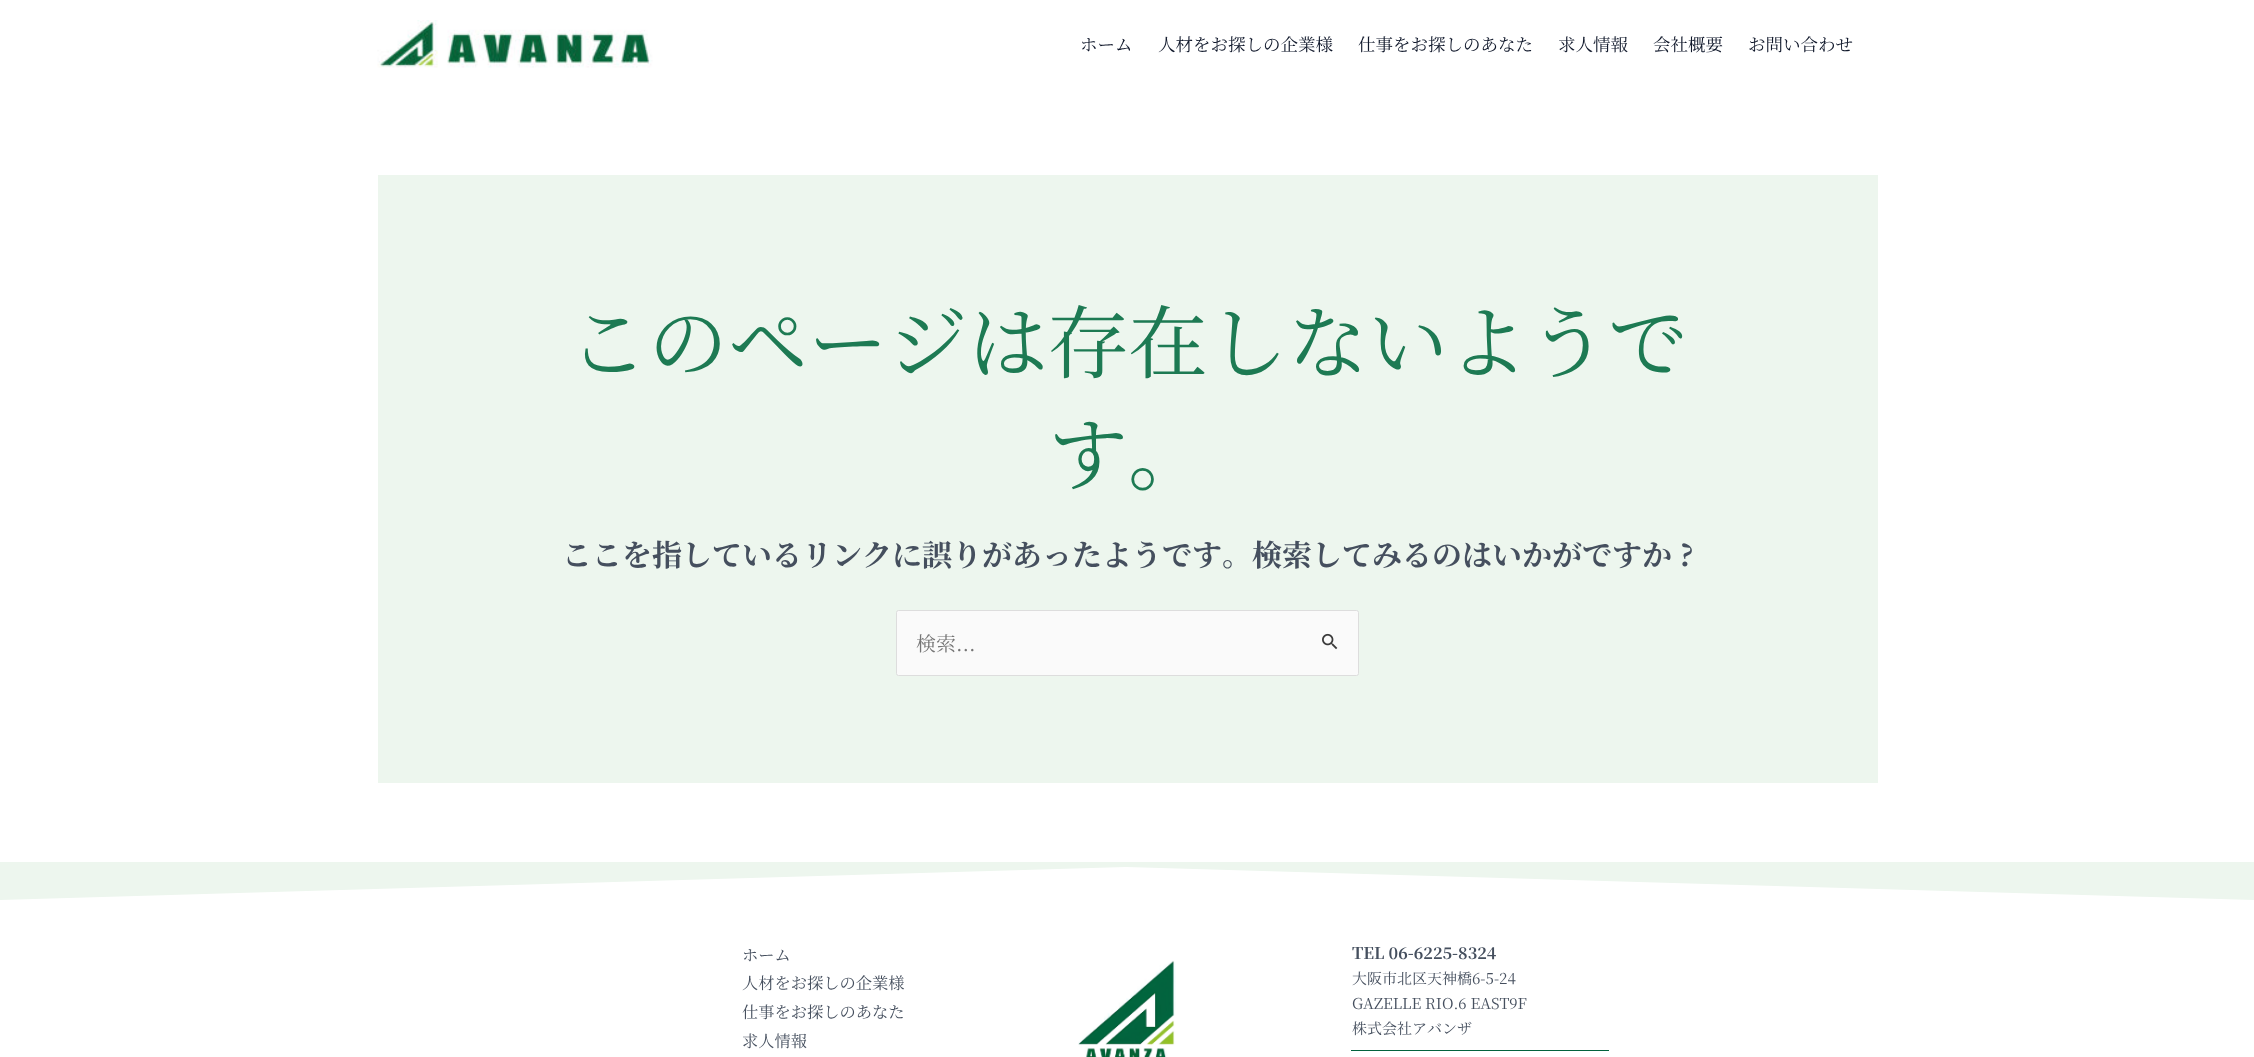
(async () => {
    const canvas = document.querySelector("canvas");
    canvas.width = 2254;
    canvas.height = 1057;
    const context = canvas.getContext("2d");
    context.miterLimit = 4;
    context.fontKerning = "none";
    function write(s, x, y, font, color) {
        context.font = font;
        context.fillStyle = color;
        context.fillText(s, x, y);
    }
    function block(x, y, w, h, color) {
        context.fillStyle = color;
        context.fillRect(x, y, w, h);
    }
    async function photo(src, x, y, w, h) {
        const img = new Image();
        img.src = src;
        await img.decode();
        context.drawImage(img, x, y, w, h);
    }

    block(0, 0, 2254, 1057, "rgb(255, 255, 255)");
    await photo("media/1.png", 377, 20, 276, 48);
    write("ホーム", 1080, 51, "17.5px Noto Serif JP", "rgb(15, 23, 42)");
    write("人材をお探しの企業様", 1158, 51, "17.5px Noto Serif JP", "rgb(15, 23, 42)");
    write("仕事をお探しのあなた", 1358, 51, "17.5px Noto Serif JP", "rgb(15, 23, 42)");
    write("求人情報", 1558, 51, "17.5px Noto Serif JP", "rgb(15, 23, 42)");
    write("会社概要", 1653, 51, "17.5px Noto Serif JP", "rgb(15, 23, 42)");
    write("お問い合わせ", 1748, 51, "17.5px Noto Serif JP", "rgb(15, 23, 42)");
    block(378, 175, 1500, 608, "rgb(237, 246, 238)");
    write("このページは存在しないようで", 568, 372, "80px Noto Serif JP", "rgb(29, 122, 83)");
    write("す。", 1048, 484, "80px Noto Serif JP", "rgb(29, 122, 83)");
    write("ここを指しているリンクに誤りがあったようです。検索してみるのはいかがですか ?", 562, 566, "bold 30px Noto Serif JP", "rgb(69, 79, 94)");
    context.fillStyle = "rgb(250, 250, 250)";
    context.beginPath();
    context.roundRect(896.5, 610.5, 462, 65, 2);
    context.fill();
    context.strokeStyle = "rgb(221, 221, 221)";
    context.stroke();
    write("検索...", 916, 651, "20px Noto Serif JP", "rgb(117, 117, 117)");
    await photo("media/2.png", 1322, 633, 16, 17);
    context.fillStyle = "rgb(237, 246, 238)";
    context.beginPath();
    context.moveTo(1126, 867);
    context.lineTo(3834, 946);
    context.lineTo(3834, 862);
    context.lineTo(-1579, 862);
    context.lineTo(-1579, 946);
    context.closePath();
    context.fill();
    write("ホーム", 742, 961, "16.25px Noto Serif JP", "rgb(69, 79, 94)");
    write("人材をお探しの企業様", 742, 989, "16.25px Noto Serif JP", "rgb(69, 79, 94)");
    write("仕事をお探しのあなた", 742, 1018, "16.25px Noto Serif JP", "rgb(69, 79, 94)");
    write("求人情報", 742, 1047, "16.25px Noto Serif JP", "rgb(69, 79, 94)");
    await photo("media/3.png", 1078, 960, 98, 97);
    write("TEL 06-6225-8324", 1352, 959, "bold 16.25px Noto Serif JP", "rgb(69, 79, 94)");
    write("大阪市北区天神橋6-5-24", 1352, 984, "15px Noto Serif JP", "rgb(69, 79, 94)");
    write("GAZELLE RIO.6 EAST9F", 1352, 1009, "15px Noto Serif JP", "rgb(69, 79, 94)");
    write("株式会社アバンザ", 1352, 1034, "15px Noto Serif JP", "rgb(69, 79, 94)");
    block(1351, 1050, 258, 1, "rgb(3, 99, 62)");
})();
